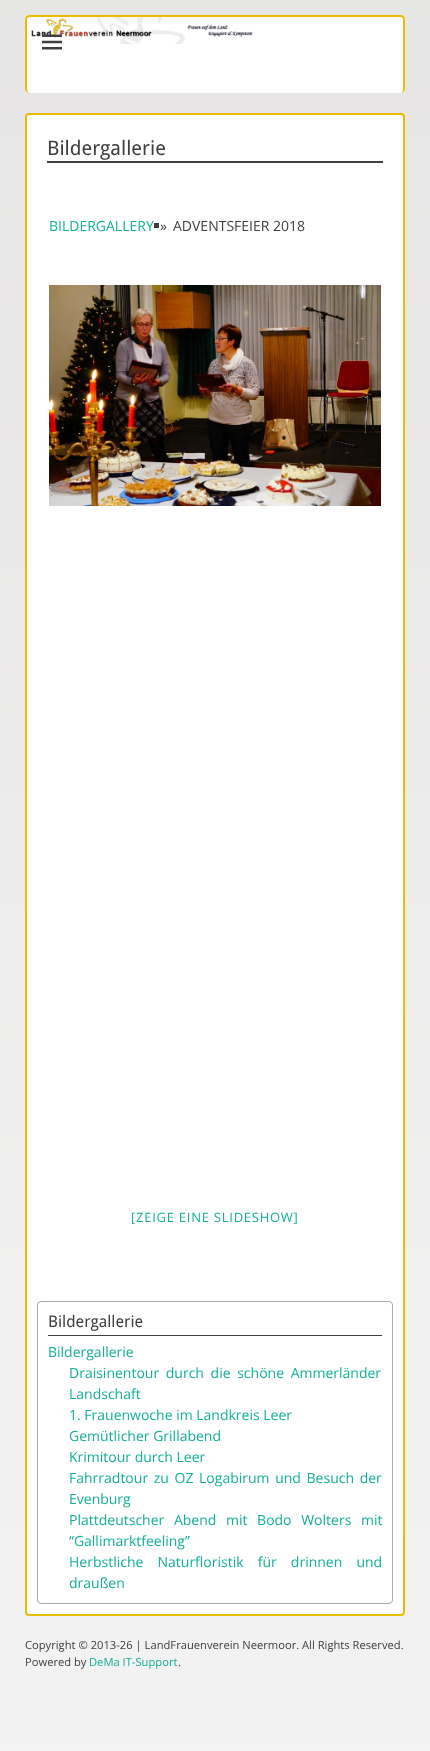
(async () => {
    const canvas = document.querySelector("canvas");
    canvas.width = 430;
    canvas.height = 1751;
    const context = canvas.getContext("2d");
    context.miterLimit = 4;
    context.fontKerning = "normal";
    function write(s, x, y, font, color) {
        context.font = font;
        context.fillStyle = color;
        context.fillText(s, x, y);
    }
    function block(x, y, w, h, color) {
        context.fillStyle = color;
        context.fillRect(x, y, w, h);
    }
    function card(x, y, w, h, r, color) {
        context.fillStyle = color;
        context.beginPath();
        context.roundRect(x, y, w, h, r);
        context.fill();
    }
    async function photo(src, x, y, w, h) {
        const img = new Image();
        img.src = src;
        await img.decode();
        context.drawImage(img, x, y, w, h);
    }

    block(0, 0, 430, 1751, "rgb(255, 255, 255)");
    await photo("media/1.png", 0, 0, 430, 1751);
    card(25, 15, 380, 78, 4, "rgb(255, 255, 255)");
    await photo("media/2.png", 31, 17, 222, 27);
    context.fillStyle = "rgb(235, 189, 0)";
    context.beginPath();
    context.moveTo(29, 15);
    context.lineTo(401, 15);
    context.bezierCurveTo(403, 15, 405, 17, 405, 19);
    context.lineTo(405, 89);
    context.bezierCurveTo(405, 91, 403, 93, 401, 93);
    context.lineTo(29, 93);
    context.bezierCurveTo(27, 93, 25, 91, 25, 89);
    context.lineTo(25, 19);
    context.bezierCurveTo(25, 17, 27, 15, 29, 15);
    context.closePath();
    context.moveTo(29, 17);
    context.lineTo(401, 17);
    context.bezierCurveTo(402, 17, 403, 18, 403, 19);
    context.lineTo(403, 89);
    context.bezierCurveTo(403, 91, 402, 93, 401, 93);
    context.lineTo(29, 93);
    context.bezierCurveTo(28, 93, 27, 91, 27, 89);
    context.lineTo(27, 19);
    context.bezierCurveTo(27, 18, 28, 17, 29, 17);
    context.closePath();
    context.fill("evenodd");
    await photo("media/3.png", 42, 34, 20, 16);
    context.fillStyle = "rgb(255, 255, 255)";
    context.beginPath();
    context.roundRect(26, 114, 378, 1501, 3);
    context.fill();
    context.strokeStyle = "rgb(235, 189, 0)";
    context.lineWidth = 2;
    context.stroke();
    block(47, 161, 336, 2, "rgb(64, 64, 64)");
    write("Bildergallerie", 47, 155, "20px Droid Sans", "rgb(64, 64, 64)");
    write("BILDERGALLERY", 49, 231, "14px Open Sans", "rgb(19, 175, 153)");
    write("»", 160, 231, "14px Open Sans", "rgb(64, 64, 64)");
    block(154, 223, 5, 5, "rgb(64, 64, 64)");
    write("ADVENTSFEIER 2018", 173, 231, "14px Open Sans", "rgb(64, 64, 64)");
    await photo("media/4.png", 49, 285, 332, 221);
    context.letterSpacing = "0.75px";
    write("[ZEIGE EINE SLIDESHOW]", 131, 1222, "13px Open Sans", "rgb(19, 175, 153)");
    context.beginPath();
    context.roundRect(37.5, 1301.5, 355, 302, 3.5);
    context.strokeStyle = "rgb(170, 170, 170)";
    context.lineWidth = 1;
    context.stroke();
    block(48, 1335, 334, 1, "rgb(64, 64, 64)");
    context.letterSpacing = "0px";
    write("Bildergallerie", 48, 1327, "16px Droid Sans", "rgb(64, 64, 64)");
    write("Bildergallerie", 48, 1357, "14px Open Sans", "rgb(19, 175, 153)");
    context.wordSpacing = "3px";
    write("Draisinentour durch die schöne Ammerländer", 69, 1378, "14px Open Sans", "rgb(19, 175, 153)");
    context.wordSpacing = "0px";
    write("Landschaft", 69, 1399, "14px Open Sans", "rgb(19, 175, 153)");
    write("1. Frauenwoche im Landkreis Leer", 69, 1420, "14px Open Sans", "rgb(19, 175, 153)");
    write("Gemütlicher Grillabend", 69, 1441, "14px Open Sans", "rgb(19, 175, 153)");
    write("Krimitour durch Leer", 69, 1462, "14px Open Sans", "rgb(19, 175, 153)");
    context.wordSpacing = "2px";
    write("Fahrradtour zu OZ Logabirum und Besuch der", 69, 1483, "14px Open Sans", "rgb(19, 175, 153)");
    context.wordSpacing = "0px";
    write("Evenburg", 69, 1504, "14px Open Sans", "rgb(19, 175, 153)");
    context.wordSpacing = "6px";
    write("Plattdeutscher Abend mit Bodo Wolters mit", 69, 1525, "14px Open Sans", "rgb(19, 175, 153)");
    context.wordSpacing = "0px";
    write("“Gallimarktfeeling”", 69, 1546, "14px Open Sans", "rgb(19, 175, 153)");
    context.wordSpacing = "10.5px";
    write("Herbstliche Naturfloristik für drinnen und", 69, 1567, "14px Open Sans", "rgb(19, 175, 153)");
    context.wordSpacing = "0px";
    write("draußen", 69, 1588, "14px Open Sans", "rgb(19, 175, 153)");
    write("Copyright © 2013-26 | LandFrauenverein Neermoor. All Rights Reserved.", 25, 1649, "11.2px Open Sans", "rgb(64, 64, 64)");
    write("Powered by", 25, 1666, "11.2px Open Sans", "rgb(64, 64, 64)");
    write("DeMa IT-Support", 89, 1666, "11.2px Open Sans", "rgb(19, 175, 153)");
    write(".", 178, 1666, "11.2px Open Sans", "rgb(64, 64, 64)");
})();
